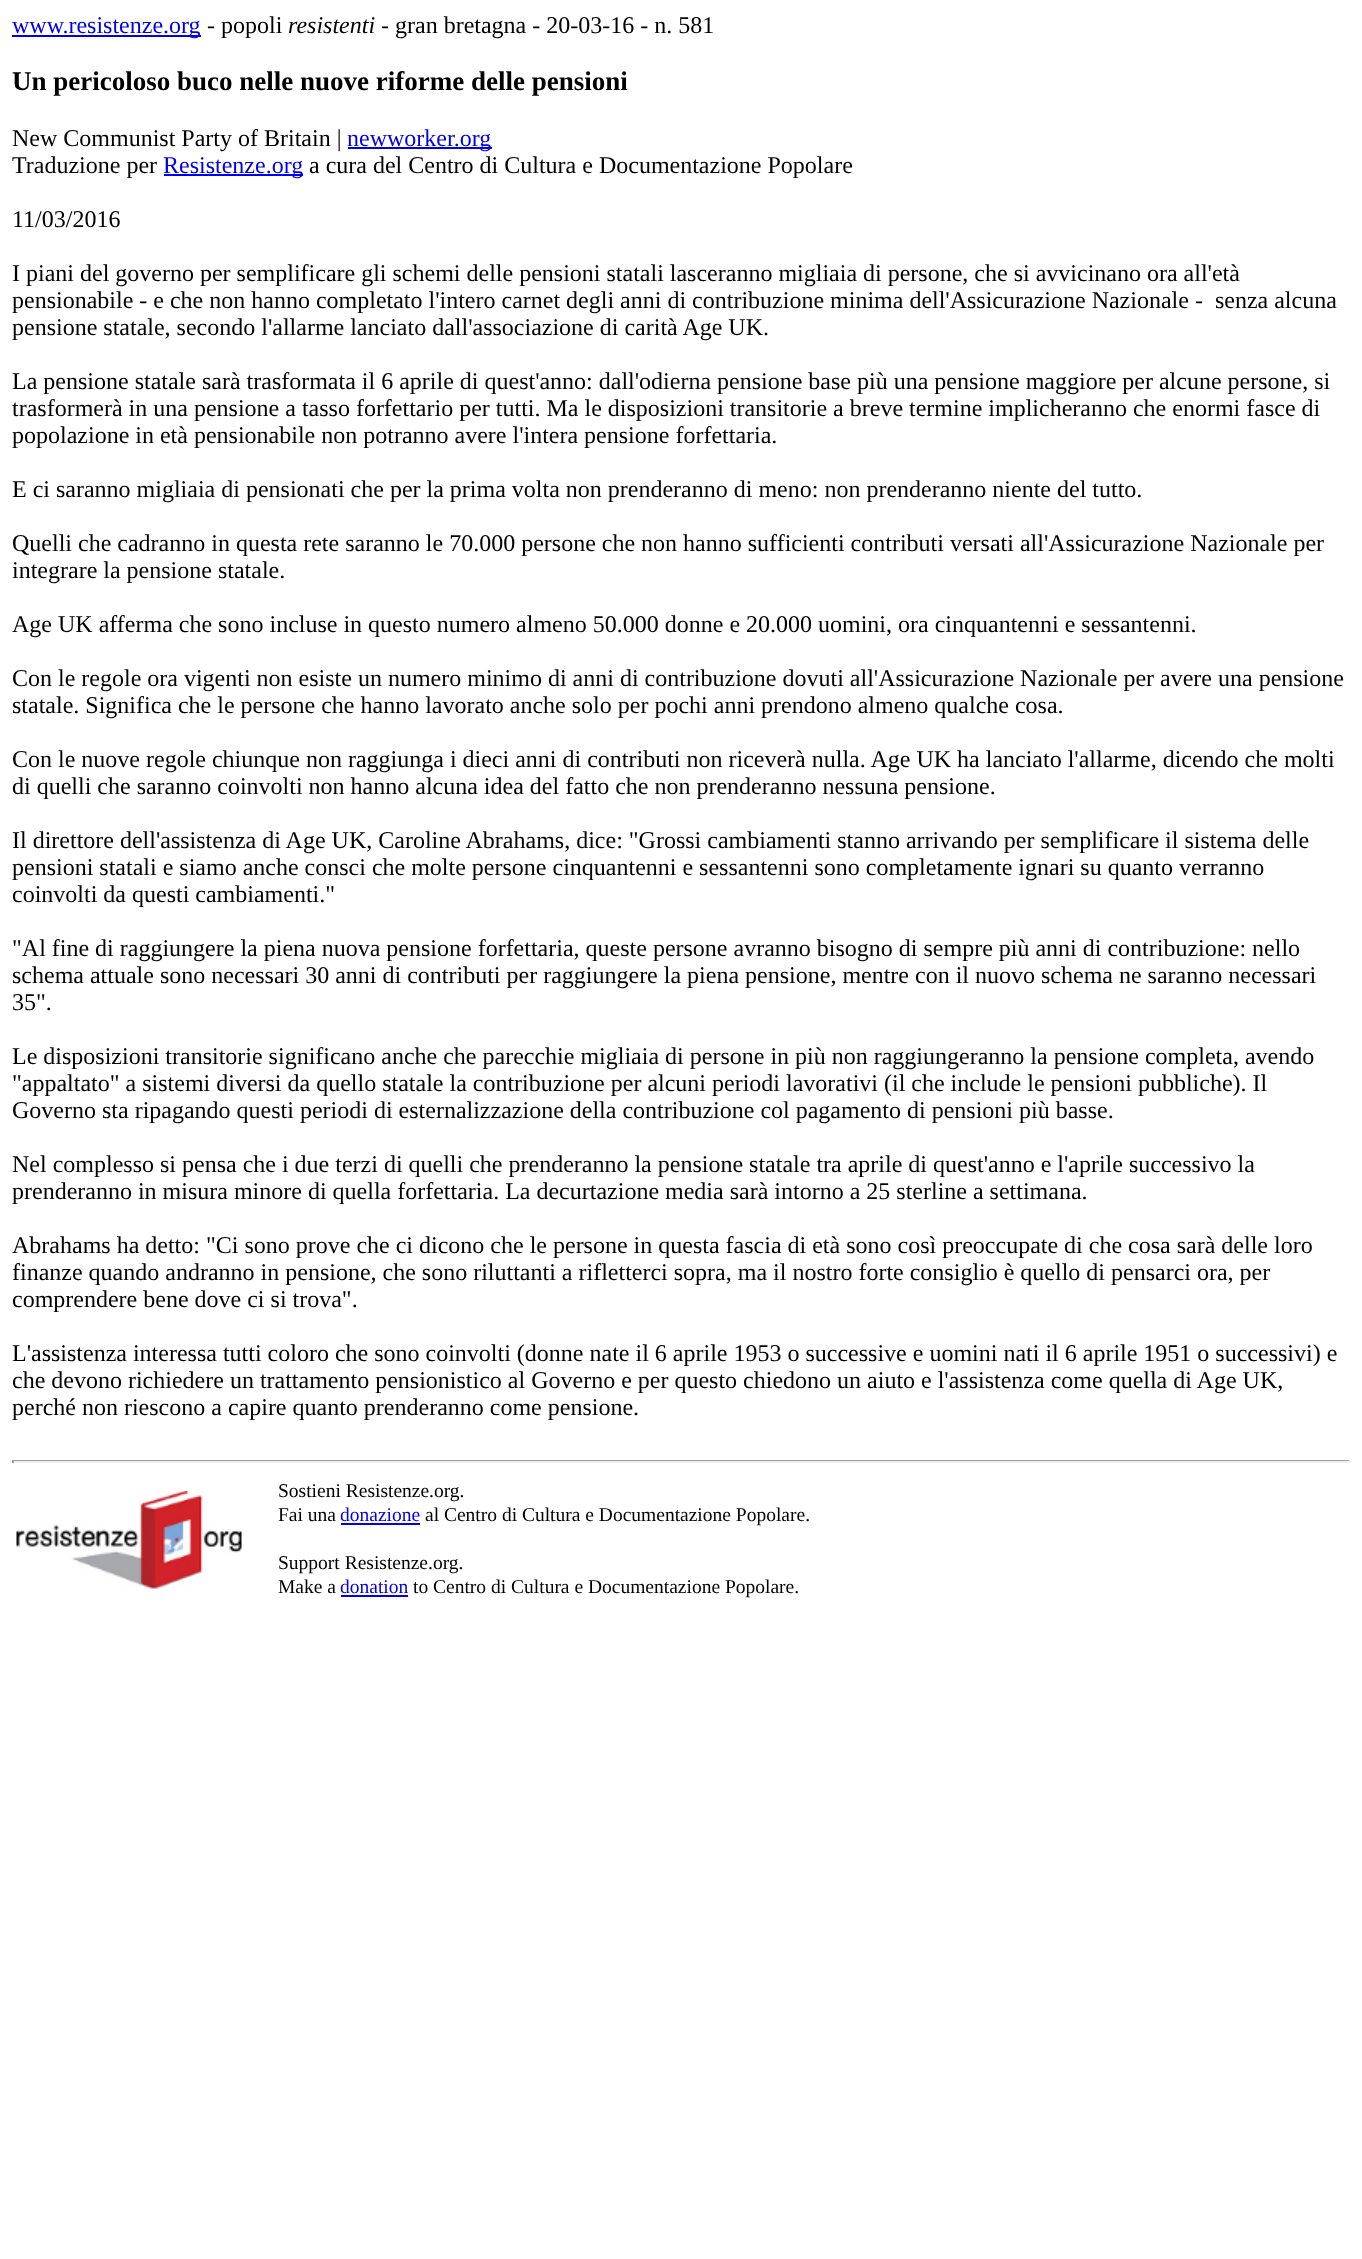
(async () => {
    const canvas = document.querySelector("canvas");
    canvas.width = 1362;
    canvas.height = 2259;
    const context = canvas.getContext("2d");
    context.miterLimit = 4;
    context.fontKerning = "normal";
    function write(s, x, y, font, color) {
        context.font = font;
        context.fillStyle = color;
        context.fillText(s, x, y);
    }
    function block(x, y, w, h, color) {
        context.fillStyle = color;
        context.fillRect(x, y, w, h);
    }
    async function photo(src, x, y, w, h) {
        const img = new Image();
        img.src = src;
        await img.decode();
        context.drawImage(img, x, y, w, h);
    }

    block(0, 0, 1362, 2259, "rgb(255, 255, 255)");
    block(12, 35, 189, 2, "rgb(0, 0, 238)");
    write("www.resistenze.org", 12, 33, "24px Liberation Serif", "rgb(0, 0, 238)");
    write("- popoli", 207, 33, "24px Liberation Serif", "rgb(0, 0, 0)");
    write("resistenti", 288, 33, "italic 24px Liberation Serif", "rgb(0, 0, 0)");
    write("- gran bretagna - 20-03-16 - n. 581", 381, 33, "24px Liberation Serif", "rgb(0, 0, 0)");
    write("Un pericoloso buco nelle nuove riforme delle pensioni", 12, 90, "bold 27px Liberation Serif", "rgb(0, 0, 0)");
    write("New Communist Party of Britain |", 12, 146, "24px Liberation Serif", "rgb(0, 0, 0)");
    block(348, 147, 144, 2, "rgb(0, 0, 238)");
    write("newworker.org", 347, 146, "24px Liberation Serif", "rgb(0, 0, 238)");
    write("Traduzione per", 12, 173, "24px Liberation Serif", "rgb(0, 0, 0)");
    block(164, 174, 139, 2, "rgb(0, 0, 238)");
    write("Resistenze.org", 163, 173, "24px Liberation Serif", "rgb(0, 0, 238)");
    write("a cura del Centro di Cultura e Documentazione Popolare", 309, 173, "24px Liberation Serif", "rgb(0, 0, 0)");
    write("11/03/2016", 12, 227, "24px Liberation Serif", "rgb(0, 0, 0)");
    write("I piani del governo per semplificare gli schemi delle pensioni statali lasceranno migliaia di persone, che si avvicinano ora all'età", 12, 281, "24px Liberation Serif", "rgb(0, 0, 0)");
    write("pensionabile - e che non hanno completato l'intero carnet degli anni di contribuzione minima dell'Assicurazione Nazionale -  senza alcuna", 12, 308, "24px Liberation Serif", "rgb(0, 0, 0)");
    write("pensione statale, secondo l'allarme lanciato dall'associazione di carità Age UK.", 12, 335, "24px Liberation Serif", "rgb(0, 0, 0)");
    write("La pensione statale sarà trasformata il 6 aprile di quest'anno: dall'odierna pensione base più una pensione maggiore per alcune persone, si", 12, 389, "24px Liberation Serif", "rgb(0, 0, 0)");
    write("trasformerà in una pensione a tasso forfettario per tutti. Ma le disposizioni transitorie a breve termine implicheranno che enormi fasce di", 12, 416, "24px Liberation Serif", "rgb(0, 0, 0)");
    write("popolazione in età pensionabile non potranno avere l'intera pensione forfettaria.", 12, 443, "24px Liberation Serif", "rgb(0, 0, 0)");
    write("E ci saranno migliaia di pensionati che per la prima volta non prenderanno di meno: non prenderanno niente del tutto.", 12, 497, "24px Liberation Serif", "rgb(0, 0, 0)");
    write("Quelli che cadranno in questa rete saranno le 70.000 persone che non hanno sufficienti contributi versati all'Assicurazione Nazionale per", 12, 551, "24px Liberation Serif", "rgb(0, 0, 0)");
    write("integrare la pensione statale.", 12, 578, "24px Liberation Serif", "rgb(0, 0, 0)");
    write("Age UK afferma che sono incluse in questo numero almeno 50.000 donne e 20.000 uomini, ora cinquantenni e sessantenni.", 12, 632, "24px Liberation Serif", "rgb(0, 0, 0)");
    write("Con le regole ora vigenti non esiste un numero minimo di anni di contribuzione dovuti all'Assicurazione Nazionale per avere una pensione", 12, 686, "24px Liberation Serif", "rgb(0, 0, 0)");
    write("statale. Significa che le persone che hanno lavorato anche solo per pochi anni prendono almeno qualche cosa.", 12, 713, "24px Liberation Serif", "rgb(0, 0, 0)");
    write("Con le nuove regole chiunque non raggiunga i dieci anni di contributi non riceverà nulla. Age UK ha lanciato l'allarme, dicendo che molti", 12, 767, "24px Liberation Serif", "rgb(0, 0, 0)");
    write("di quelli che saranno coinvolti non hanno alcuna idea del fatto che non prenderanno nessuna pensione.", 12, 794, "24px Liberation Serif", "rgb(0, 0, 0)");
    write("Il direttore dell'assistenza di Age UK, Caroline Abrahams, dice: \"Grossi cambiamenti stanno arrivando per semplificare il sistema delle", 12, 848, "24px Liberation Serif", "rgb(0, 0, 0)");
    write("pensioni statali e siamo anche consci che molte persone cinquantenni e sessantenni sono completamente ignari su quanto verranno", 12, 875, "24px Liberation Serif", "rgb(0, 0, 0)");
    write("coinvolti da questi cambiamenti.\"", 12, 902, "24px Liberation Serif", "rgb(0, 0, 0)");
    write("\"Al fine di raggiungere la piena nuova pensione forfettaria, queste persone avranno bisogno di sempre più anni di contribuzione: nello", 12, 956, "24px Liberation Serif", "rgb(0, 0, 0)");
    write("schema attuale sono necessari 30 anni di contributi per raggiungere la piena pensione, mentre con il nuovo schema ne saranno necessari", 12, 983, "24px Liberation Serif", "rgb(0, 0, 0)");
    write("35\".", 12, 1010, "24px Liberation Serif", "rgb(0, 0, 0)");
    write("Le disposizioni transitorie significano anche che parecchie migliaia di persone in più non raggiungeranno la pensione completa, avendo", 12, 1064, "24px Liberation Serif", "rgb(0, 0, 0)");
    write("\"appaltato\" a sistemi diversi da quello statale la contribuzione per alcuni periodi lavorativi (il che include le pensioni pubbliche). Il", 12, 1091, "24px Liberation Serif", "rgb(0, 0, 0)");
    write("Governo sta ripagando questi periodi di esternalizzazione della contribuzione col pagamento di pensioni più basse.", 12, 1118, "24px Liberation Serif", "rgb(0, 0, 0)");
    write("Nel complesso si pensa che i due terzi di quelli che prenderanno la pensione statale tra aprile di quest'anno e l'aprile successivo la", 12, 1172, "24px Liberation Serif", "rgb(0, 0, 0)");
    write("prenderanno in misura minore di quella forfettaria. La decurtazione media sarà intorno a 25 sterline a settimana.", 12, 1199, "24px Liberation Serif", "rgb(0, 0, 0)");
    write("Abrahams ha detto: \"Ci sono prove che ci dicono che le persone in questa fascia di età sono così preoccupate di che cosa sarà delle loro", 12, 1253, "24px Liberation Serif", "rgb(0, 0, 0)");
    write("finanze quando andranno in pensione, che sono riluttanti a rifletterci sopra, ma il nostro forte consiglio è quello di pensarci ora, per", 12, 1280, "24px Liberation Serif", "rgb(0, 0, 0)");
    write("comprendere bene dove ci si trova\".", 12, 1307, "24px Liberation Serif", "rgb(0, 0, 0)");
    write("L'assistenza interessa tutti coloro che sono coinvolti (donne nate il 6 aprile 1953 o successive e uomini nati il 6 aprile 1951 o successivi) e", 12, 1361, "24px Liberation Serif", "rgb(0, 0, 0)");
    write("che devono richiedere un trattamento pensionistico al Governo e per questo chiedono un aiuto e l'assistenza come quella di Age UK,", 12, 1388, "24px Liberation Serif", "rgb(0, 0, 0)");
    write("perché non riescono a capire quanto prenderanno come pensione.", 12, 1415, "24px Liberation Serif", "rgb(0, 0, 0)");
    block(12, 1460, 1338, 1, "rgb(159, 159, 159)");
    block(1349, 1460, 2, 3, "rgb(238, 238, 238)");
    block(12, 1461, 1338, 2, "rgb(238, 238, 238)");
    block(12, 1460, 2, 3, "rgb(159, 159, 159)");
    await photo("media/1.png", 16, 1491, 226, 98);
    write("Sostieni Resistenze.org.", 278, 1497, "19.5px Liberation Serif", "rgb(0, 0, 0)");
    write("Fai una", 278, 1521, "19.5px Liberation Serif", "rgb(0, 0, 0)");
    write("donazione", 340, 1521, "19.5px Liberation Serif", "rgb(0, 0, 238)");
    block(341, 1523, 79, 2, "rgb(0, 0, 238)");
    write("al Centro di Cultura e Documentazione Popolare.", 425, 1521, "19.5px Liberation Serif", "rgb(0, 0, 0)");
    write("Support Resistenze.org.", 278, 1569, "19.5px Liberation Serif", "rgb(0, 0, 0)");
    write("Make a", 278, 1593, "19.5px Liberation Serif", "rgb(0, 0, 0)");
    write("donation", 340, 1593, "19.5px Liberation Serif", "rgb(0, 0, 238)");
    block(341, 1595, 67, 2, "rgb(0, 0, 238)");
    write("to Centro di Cultura e Documentazione Popolare.", 413, 1593, "19.5px Liberation Serif", "rgb(0, 0, 0)");
})();
